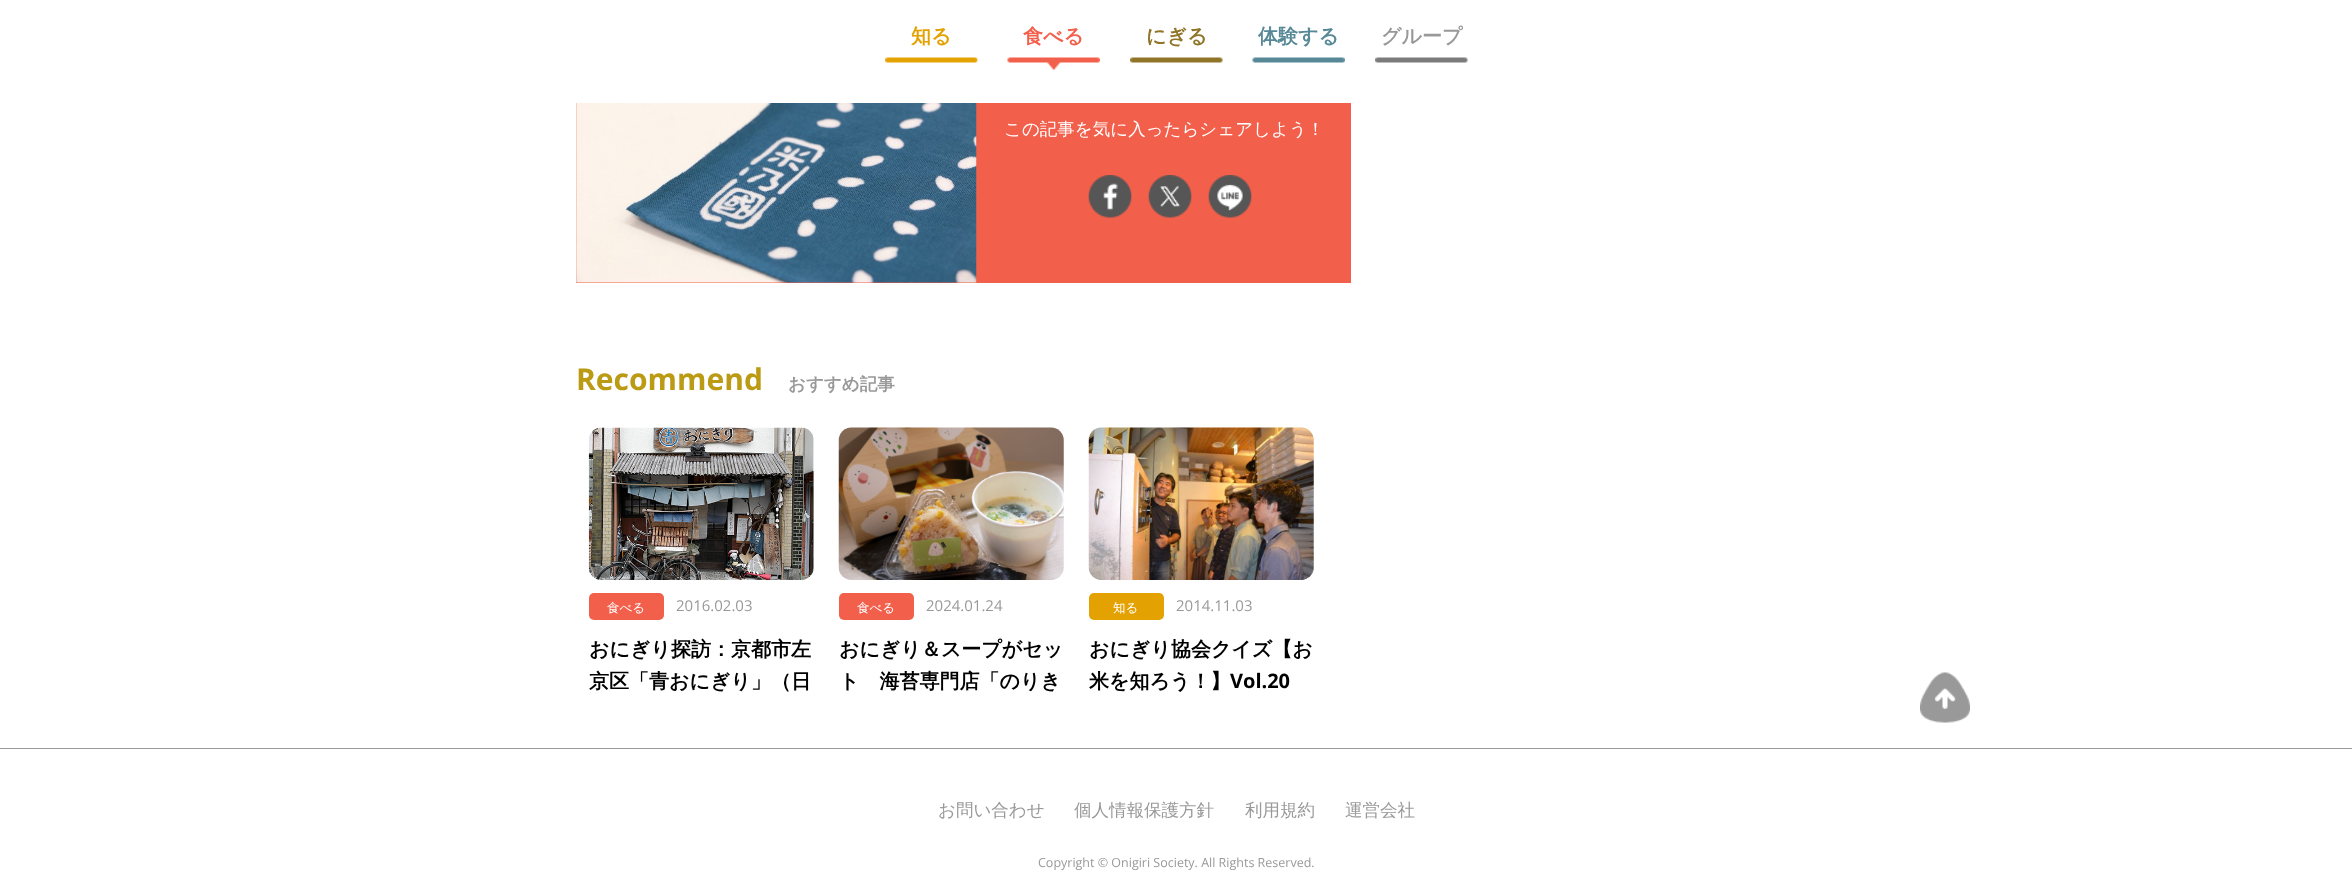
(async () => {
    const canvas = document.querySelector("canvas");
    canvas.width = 2352;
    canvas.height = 893;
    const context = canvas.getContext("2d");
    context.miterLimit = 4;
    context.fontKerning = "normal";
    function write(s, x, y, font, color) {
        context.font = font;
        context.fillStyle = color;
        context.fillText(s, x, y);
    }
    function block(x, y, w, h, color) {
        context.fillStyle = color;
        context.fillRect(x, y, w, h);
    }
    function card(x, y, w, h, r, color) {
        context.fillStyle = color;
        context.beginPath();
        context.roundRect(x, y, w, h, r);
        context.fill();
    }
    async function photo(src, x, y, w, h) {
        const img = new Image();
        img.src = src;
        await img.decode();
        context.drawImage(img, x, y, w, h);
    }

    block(0, 0, 2352, 893, "rgb(255, 255, 255)");
    await photo("media/1.png", 885, 57, 93, 6);
    write("知る", 911, 43, "bold 20px WenQuanYi Zen Hei", "rgb(228, 162, 2)");
    await photo("media/2.png", 1007, 57, 93, 13);
    write("食べる", 1023, 43, "bold 20px WenQuanYi Zen Hei", "rgb(242, 95, 75)");
    await photo("media/3.png", 1130, 57, 93, 6);
    write("にぎる", 1146, 43, "bold 20px WenQuanYi Zen Hei", "rgb(144, 117, 41)");
    await photo("media/4.png", 1252, 57, 93, 6);
    write("体験する", 1258, 43, "bold 20px WenQuanYi Zen Hei", "rgb(87, 136, 151)");
    await photo("media/5.png", 1375, 57, 93, 6);
    write("グループ", 1381, 43, "bold 20px WenQuanYi Zen Hei", "rgb(153, 153, 153)");
    block(576, 103, 775, 180, "rgb(242, 95, 75)");
    await photo("media/6.png", 576, 103, 401, 180);
    write("この記事を気に入ったらシェアしよう！", 1004, 135, "500 17.5px WenQuanYi Zen Hei", "rgb(255, 255, 255)");
    await photo("media/7.png", 1088, 175, 44, 43);
    await photo("media/8.png", 1148, 175, 44, 43);
    await photo("media/9.png", 1208, 175, 44, 43);
    write("Recommend", 576, 390, "bold 30px Open Sans", "rgb(187, 154, 20)");
    write("おすすめ記事", 788, 390, "bold 17.5px WenQuanYi Zen Hei", "rgb(153, 153, 153)");
    await photo("media/10.png", 588, 427, 226, 153);
    card(589, 593, 75, 27, 5, "rgb(242, 95, 75)");
    write("食べる", 607, 612, "500 12.5px WenQuanYi Zen Hei", "rgb(255, 255, 255)");
    write("2016.02.03", 676, 611, "15px Open Sans", "rgb(153, 153, 153)");
    write("おにぎり探訪：京都市左", 589, 656, "bold 20px WenQuanYi Zen Hei", "rgb(0, 0, 0)");
    write("京区「青おにぎり」（日", 589, 688, "bold 20px WenQuanYi Zen Hei", "rgb(0, 0, 0)");
    await photo("media/11.png", 838, 427, 226, 153);
    card(839, 593, 75, 27, 5, "rgb(242, 95, 75)");
    write("食べる", 857, 612, "500 12.5px WenQuanYi Zen Hei", "rgb(255, 255, 255)");
    write("2024.01.24", 926, 611, "15px Open Sans", "rgb(153, 153, 153)");
    write("おにぎり＆スープがセッ", 839, 656, "bold 20px WenQuanYi Zen Hei", "rgb(0, 0, 0)");
    write("ト　海苔専門店「のりき", 839, 688, "bold 20px WenQuanYi Zen Hei", "rgb(0, 0, 0)");
    await photo("media/12.png", 1088, 427, 226, 153);
    card(1089, 593, 75, 27, 5, "rgb(228, 162, 2)");
    write("知る", 1113, 612, "500 12.5px WenQuanYi Zen Hei", "rgb(255, 255, 255)");
    write("2014.11.03", 1176, 611, "15px Open Sans", "rgb(153, 153, 153)");
    write("おにぎり協会クイズ【お", 1089, 656, "bold 20px WenQuanYi Zen Hei", "rgb(0, 0, 0)");
    write("米を知ろう！】", 1089, 688, "bold 20px WenQuanYi Zen Hei", "rgb(0, 0, 0)");
    write("Vol.20", 1230, 688, "bold 20px Open Sans", "rgb(0, 0, 0)");
    await photo("media/13.png", 1920, 672, 50, 51);
    block(0, 748, 2352, 1, "rgb(153, 153, 153)");
    write("お問い合わせ", 938, 816, "500 17.5px WenQuanYi Zen Hei", "rgb(153, 153, 153)");
    write("個人情報保護方針", 1074, 816, "500 17.5px WenQuanYi Zen Hei", "rgb(153, 153, 153)");
    write("利用規約", 1245, 816, "500 17.5px WenQuanYi Zen Hei", "rgb(153, 153, 153)");
    write("運営会社", 1345, 816, "500 17.5px WenQuanYi Zen Hei", "rgb(153, 153, 153)");
    write("Copyright © Onigiri Society. All Rights Reserved.", 1038, 867, "12.5px Open Sans", "rgb(153, 153, 153)");
})();
